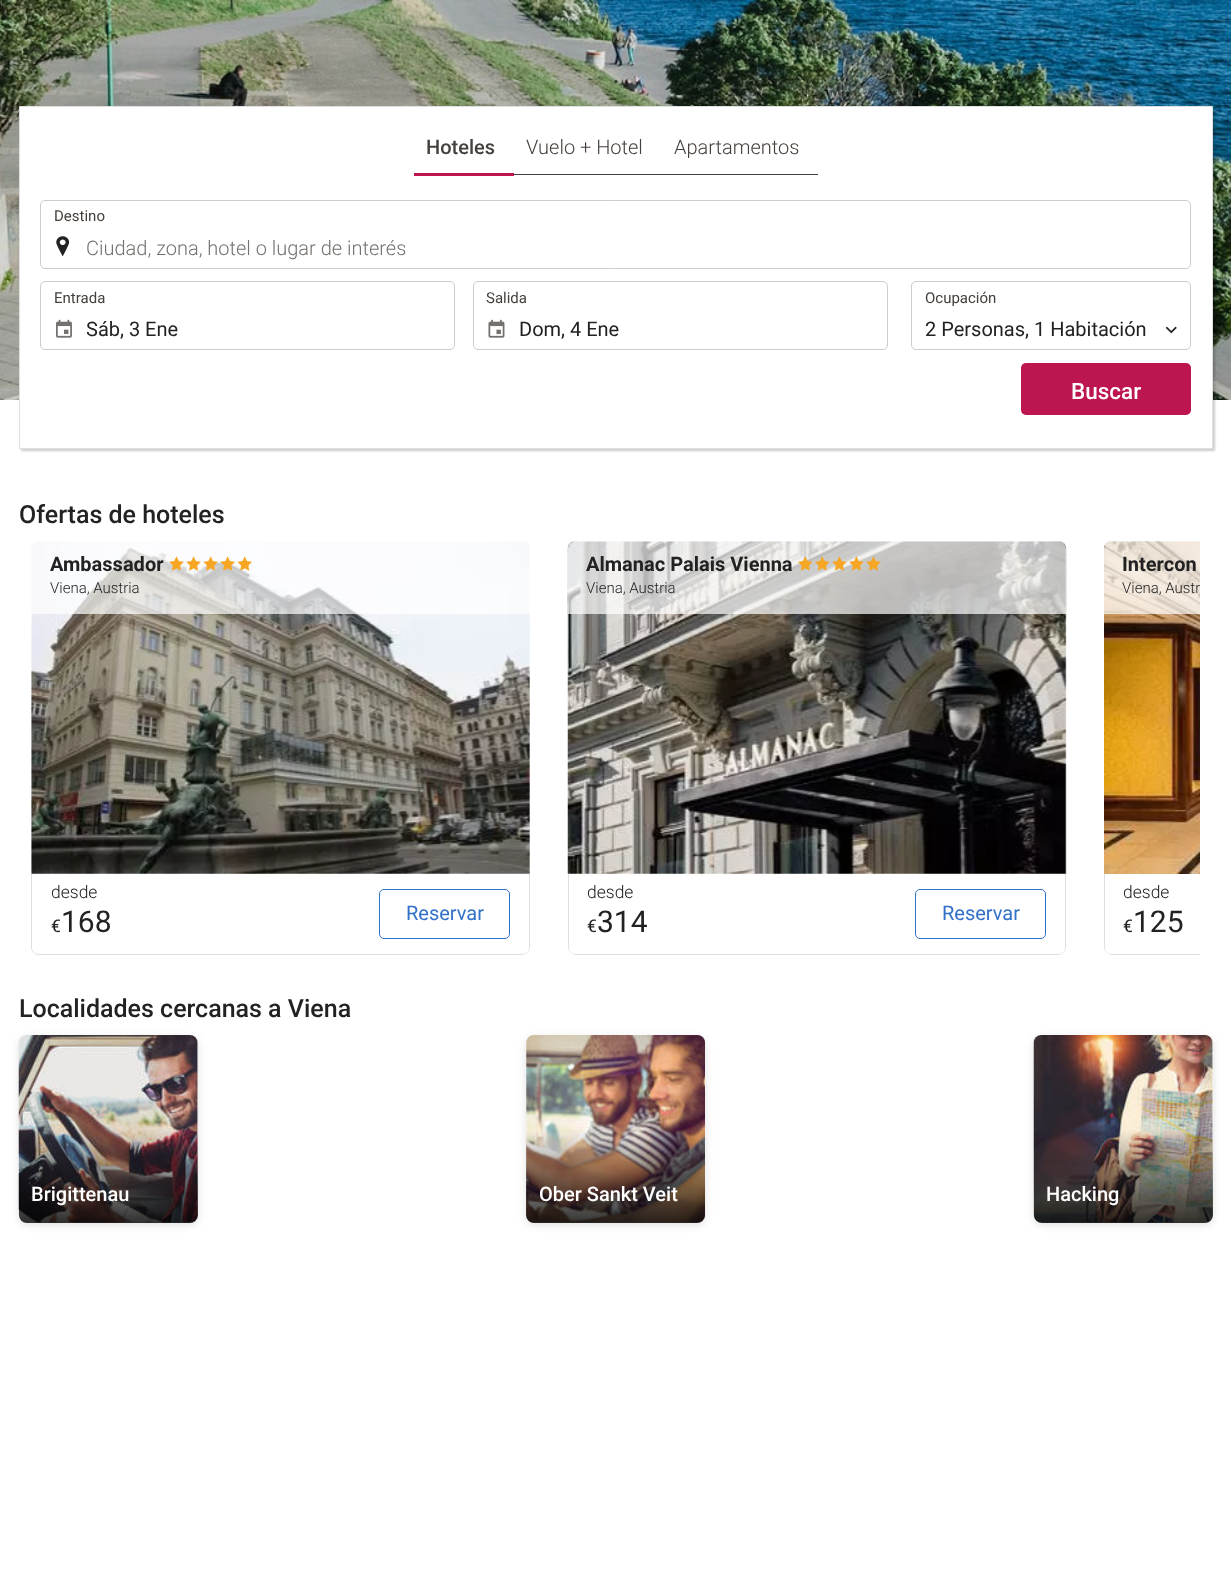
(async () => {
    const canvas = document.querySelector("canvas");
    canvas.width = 1231;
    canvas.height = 1595;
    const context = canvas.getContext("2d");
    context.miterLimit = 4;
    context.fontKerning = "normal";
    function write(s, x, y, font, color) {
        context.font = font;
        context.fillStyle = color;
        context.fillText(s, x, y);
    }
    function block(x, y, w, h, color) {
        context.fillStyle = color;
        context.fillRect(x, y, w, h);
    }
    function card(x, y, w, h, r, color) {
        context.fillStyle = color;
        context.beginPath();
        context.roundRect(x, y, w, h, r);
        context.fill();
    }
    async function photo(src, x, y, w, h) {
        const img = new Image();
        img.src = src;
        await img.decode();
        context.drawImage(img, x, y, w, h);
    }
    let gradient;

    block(0, 0, 1231, 1595, "rgb(255, 255, 255)");
    await photo("media/1.png", 0, 0, 1231, 400);
    context.fillStyle = "rgba(0, 0, 0, 0.2)";
    context.filter = "blur(1px)";
    context.beginPath();
    context.rect(21, 109, 1194, 342);
    context.fill();
    context.filter = "none";
    context.fillStyle = "rgb(255, 255, 255)";
    context.beginPath();
    context.rect(19.5, 106.5, 1193, 342);
    context.fill();
    context.strokeStyle = "rgb(223, 223, 223)";
    context.stroke();
    block(414, 173, 100, 3, "rgb(189, 21, 80)");
    write("Hoteles", 426, 154, "500 20px Roboto", "rgb(70, 64, 60)");
    block(514, 174, 304, 1, "rgb(70, 64, 60)");
    write("Vuelo + Hotel", 526, 154, "300 20px Roboto", "rgb(70, 64, 60)");
    write("Apartamentos", 674, 154, "300 20px Roboto", "rgb(70, 64, 60)");
    await photo("media/2.png", 56, 236, 14, 21);
    context.beginPath();
    context.roundRect(40.5, 200.5, 1150, 68, 4.5);
    context.strokeStyle = "rgb(208, 203, 201)";
    context.stroke();
    write("Destino", 54, 221, "15px Roboto", "rgb(70, 64, 60)");
    write("Ciudad, zona, hotel o lugar de interés", 86, 255, "300 20px Roboto", "rgb(116, 113, 110)");
    await photo("media/3.png", 56, 319, 16, 19);
    context.beginPath();
    context.roundRect(40.5, 281.5, 414, 68, 4.5);
    context.stroke();
    write("Entrada", 54, 303, "15px Roboto", "rgb(70, 64, 60)");
    write("Sáb, 3 Ene", 86, 336, "20px Roboto", "rgb(34, 34, 34)");
    await photo("media/4.png", 488, 319, 17, 19);
    context.beginPath();
    context.roundRect(473.5, 281.5, 414, 68, 4.5);
    context.stroke();
    write("Salida", 486, 303, "15px Roboto", "rgb(70, 64, 60)");
    write("Dom, 4 Ene", 519, 336, "20px Roboto", "rgb(34, 34, 34)");
    context.beginPath();
    context.roundRect(911.5, 281.5, 279, 68, 4.5);
    context.stroke();
    write("Ocupación", 925, 303, "15px Roboto", "rgb(70, 64, 60)");
    write("2 Personas, 1 Habitación", 925, 336, "20px Roboto", "rgb(34, 34, 34)");
    await photo("media/5.png", 1165, 326, 12, 8);
    card(1021, 363, 170, 52, 5, "rgb(189, 21, 80)");
    write("Buscar", 1071, 399, "500 22.5px Roboto", "rgb(255, 255, 255)");
    write("Ofertas de hoteles", 19, 523, "500 25px Roboto", "rgb(34, 34, 34)");
    await photo("media/6.png", 31, 541, 499, 333);
    context.fillStyle = "rgba(255, 255, 255, 0.7)";
    context.beginPath();
    context.roundRect(31, 541, 499, 73, [8, 8, 0, 0]);
    context.fill();
    write("Ambassador", 50, 571, "bold 20px Roboto", "rgb(34, 34, 34)");
    await photo("media/7.png", 169, 556, 83, 15);
    write("Viena, Austria", 50, 593, "300 15px Roboto", "rgb(34, 34, 34)");
    context.fillStyle = "rgb(223, 223, 223)";
    context.beginPath();
    context.moveTo(32, 874);
    context.lineTo(31, 874);
    context.lineTo(31, 947);
    context.bezierCurveTo(31, 951, 34, 954, 38, 955);
    context.lineTo(522, 955);
    context.bezierCurveTo(526, 955, 530, 951, 530, 947);
    context.lineTo(530, 874);
    context.lineTo(529, 874);
    context.lineTo(529, 948);
    context.bezierCurveTo(529, 951, 526, 954, 522, 954);
    context.lineTo(39, 954);
    context.bezierCurveTo(35, 954, 32, 951, 32, 948);
    context.closePath();
    context.fill();
    write("desde", 51, 898, "300 17.5px Roboto", "rgb(34, 34, 34)");
    write("€", 51, 932, "17.5px Roboto", "rgb(34, 34, 34)");
    write("168", 61, 932, "30px Roboto", "rgb(34, 34, 34)");
    context.beginPath();
    context.roundRect(379.5, 889.5, 130, 49, 4.5);
    context.strokeStyle = "rgb(49, 113, 201)";
    context.stroke();
    write("Reservar", 406, 920, "20px Roboto", "rgb(49, 113, 201)");
    await photo("media/8.png", 567, 541, 500, 333);
    context.fillStyle = "rgba(255, 255, 255, 0.7)";
    context.beginPath();
    context.roundRect(568, 541, 498, 73, [8, 8, 0, 0]);
    context.fill();
    write("Almanac Palais Vienna", 586, 571, "bold 20px Roboto", "rgb(34, 34, 34)");
    await photo("media/9.png", 798, 556, 83, 15);
    write("Viena, Austria", 586, 593, "300 15px Roboto", "rgb(34, 34, 34)");
    context.fillStyle = "rgb(223, 223, 223)";
    context.beginPath();
    context.moveTo(569, 874);
    context.lineTo(568, 874);
    context.lineTo(568, 947);
    context.bezierCurveTo(568, 951, 572, 955, 576, 955);
    context.lineTo(1058, 955);
    context.bezierCurveTo(1062, 955, 1066, 951, 1066, 947);
    context.lineTo(1066, 874);
    context.lineTo(1065, 874);
    context.lineTo(1065, 948);
    context.bezierCurveTo(1065, 951, 1062, 954, 1059, 954);
    context.lineTo(575, 954);
    context.bezierCurveTo(572, 954, 569, 951, 569, 948);
    context.closePath();
    context.fill();
    write("desde", 587, 898, "300 17.5px Roboto", "rgb(34, 34, 34)");
    write("€", 587, 932, "17.5px Roboto", "rgb(34, 34, 34)");
    write("314", 597, 932, "30px Roboto", "rgb(34, 34, 34)");
    context.beginPath();
    context.roundRect(915.5, 889.5, 130, 49, 4.5);
    context.stroke();
    write("Reservar", 942, 920, "20px Roboto", "rgb(49, 113, 201)");
    await photo("media/10.png", 1104, 541, 96, 333);
    context.fillStyle = "rgba(255, 255, 255, 0.7)";
    context.beginPath();
    context.roundRect(1104, 541, 96, 73, [8, 0, 0, 0]);
    context.fill();
    write("Intercon", 1122, 571, "bold 20px Roboto", "rgb(34, 34, 34)");
    write("Viena, Austr", 1122, 593, "300 15px Roboto", "rgb(34, 34, 34)");
    context.save();
    context.beginPath();
    context.rect(31, 541, 1169, 414);
    context.clip();
    context.fillStyle = "rgb(223, 223, 223)";
    context.beginPath();
    context.moveTo(1105, 874);
    context.lineTo(1104, 874);
    context.lineTo(1104, 947);
    context.bezierCurveTo(1104, 951, 1108, 955, 1112, 955);
    context.lineTo(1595, 955);
    context.bezierCurveTo(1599, 955, 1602, 952, 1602, 948);
    context.lineTo(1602, 874);
    context.lineTo(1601, 874);
    context.lineTo(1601, 948);
    context.bezierCurveTo(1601, 951, 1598, 954, 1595, 954);
    context.lineTo(1111, 954);
    context.bezierCurveTo(1108, 954, 1105, 951, 1105, 948);
    context.closePath();
    context.fill();
    context.restore();
    write("desde", 1123, 898, "300 17.5px Roboto", "rgb(34, 34, 34)");
    write("€", 1123, 932, "17.5px Roboto", "rgb(34, 34, 34)");
    write("125", 1133, 932, "30px Roboto", "rgb(34, 34, 34)");
    write("Localidades cercanas a Viena", 19, 1017, "500 25px Roboto", "rgb(34, 34, 34)");
    context.fillStyle = "rgba(0, 0, 0, 0.12)";
    context.filter = "blur(4.5px)";
    context.beginPath();
    context.roundRect(19, 1038, 179, 187, 8);
    context.fill();
    context.filter = "none";
    card(19, 1035, 179, 188, 8, "rgb(255, 255, 255)");
    await photo("media/11.png", 18, 1035, 180, 188);
    gradient = context.createLinearGradient(108, 1129, 108, 1223);
    gradient.addColorStop(0, "rgba(0, 0, 0, 0)");
    gradient.addColorStop(1, "rgba(0, 0, 0, 0.8)");
    context.fillStyle = gradient;
    context.beginPath();
    context.roundRect(19, 1129, 179, 94, [0, 0, 8, 8]);
    context.fill();
    write("Brigittenau", 31, 1201, "500 20px Roboto", "rgb(255, 255, 255)");
    context.fillStyle = "rgba(0, 0, 0, 0.12)";
    context.filter = "blur(4.5px)";
    context.beginPath();
    context.roundRect(526, 1038, 179, 187, 8);
    context.fill();
    context.filter = "none";
    card(526, 1035, 179, 188, 8, "rgb(255, 255, 255)");
    await photo("media/12.png", 526, 1035, 179, 188);
    gradient = context.createLinearGradient(616, 1129, 616, 1223);
    gradient.addColorStop(0, "rgba(0, 0, 0, 0)");
    gradient.addColorStop(1, "rgba(0, 0, 0, 0.8)");
    context.fillStyle = gradient;
    context.beginPath();
    context.roundRect(526, 1129, 179, 94, [0, 0, 8, 8]);
    context.fill();
    write("Ober Sankt Veit", 539, 1201, "500 20px Roboto", "rgb(255, 255, 255)");
    context.fillStyle = "rgba(0, 0, 0, 0.12)";
    context.filter = "blur(4.5px)";
    context.beginPath();
    context.roundRect(1034, 1038, 179, 187, 8);
    context.fill();
    context.filter = "none";
    card(1034, 1035, 179, 188, 8, "rgb(255, 255, 255)");
    await photo("media/13.png", 1033, 1035, 180, 188);
    gradient = context.createLinearGradient(1123, 1129, 1123, 1223);
    gradient.addColorStop(0, "rgba(0, 0, 0, 0)");
    gradient.addColorStop(1, "rgba(0, 0, 0, 0.8)");
    context.fillStyle = gradient;
    context.beginPath();
    context.roundRect(1034, 1129, 179, 94, [0, 0, 8, 8]);
    context.fill();
    write("Hacking", 1046, 1201, "500 20px Roboto", "rgb(255, 255, 255)");
})();
